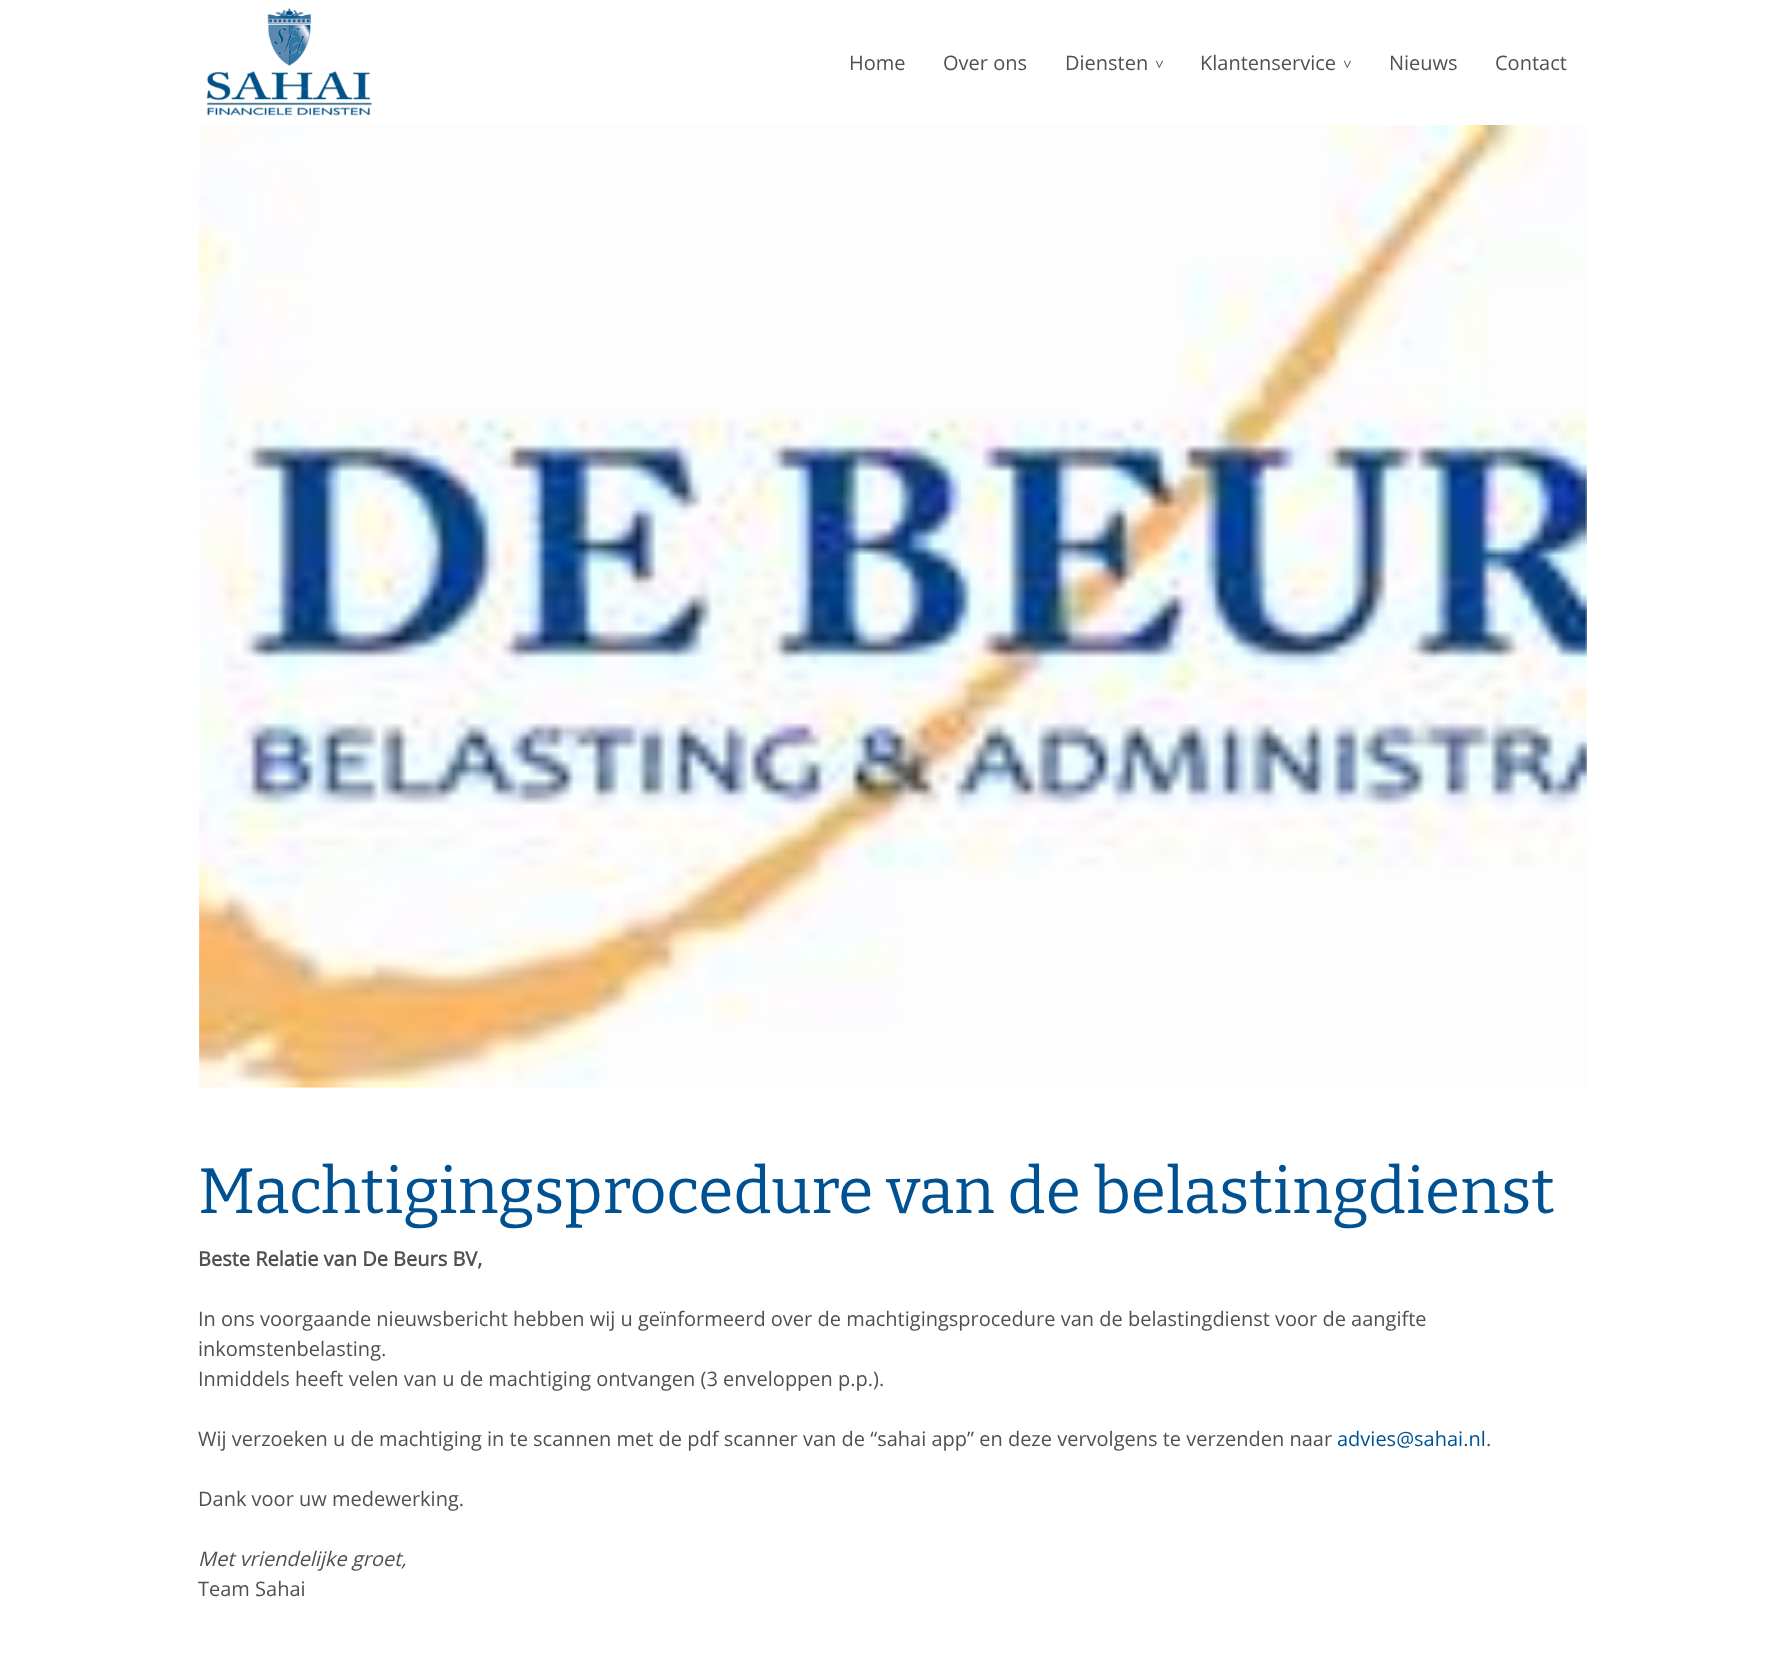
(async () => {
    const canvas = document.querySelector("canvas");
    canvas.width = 1783;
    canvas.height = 1674;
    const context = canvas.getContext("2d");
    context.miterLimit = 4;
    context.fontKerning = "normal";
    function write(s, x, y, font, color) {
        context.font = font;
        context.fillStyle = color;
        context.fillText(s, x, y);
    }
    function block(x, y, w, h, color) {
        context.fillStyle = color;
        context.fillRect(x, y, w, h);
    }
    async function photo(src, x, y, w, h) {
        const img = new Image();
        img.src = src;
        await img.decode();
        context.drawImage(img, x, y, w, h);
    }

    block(0, 0, 1783, 1674, "rgb(255, 255, 255)");
    await photo("media/1.png", 206, 8, 166, 108);
    write("Home", 849, 70, "20px Open Sans", "rgb(80, 80, 80)");
    write("Over ons", 943, 70, "20px Open Sans", "rgb(80, 80, 80)");
    write("Diensten", 1065, 70, "20px Open Sans", "rgb(80, 80, 80)");
    context.font = "15px Open Sans";
    context.save();
    context.translate(1154, 60);
    context.rotate(90 * Math.PI / 180);
    context.fillText(">", 0, 0);
    context.restore();
    write("Klantenservice", 1200, 70, "20px Open Sans", "rgb(80, 80, 80)");
    context.font = "15px Open Sans";
    context.save();
    context.translate(1342, 60);
    context.rotate(90 * Math.PI / 180);
    context.fillText(">", 0, 0);
    context.restore();
    write("Nieuws", 1389, 70, "20px Open Sans", "rgb(80, 80, 80)");
    write("Contact", 1495, 70, "20px Open Sans", "rgb(80, 80, 80)");
    await photo("media/2.png", 199, 125, 1388, 963);
    write("Machtigingsprocedure van de belastingdienst", 198, 1213, "100 64.25px Bitter", "rgb(0, 81, 146)");
    write("Beste Relatie van De Beurs BV,", 198, 1266, "bold 20px Open Sans", "rgb(80, 80, 80)");
    write("In ons voorgaande nieuwsbericht hebben wij u geïnformeerd over de machtigingsprocedure van de belastingdienst voor de aangifte", 198, 1326, "20px Open Sans", "rgb(80, 80, 80)");
    write("inkomstenbelasting.", 198, 1356, "20px Open Sans", "rgb(80, 80, 80)");
    write("Inmiddels heeft velen van u de machtiging ontvangen (3 enveloppen p.p.).", 198, 1386, "20px Open Sans", "rgb(80, 80, 80)");
    write("Wij verzoeken u de machtiging in te scannen met de pdf scanner van de “sahai app” en deze vervolgens te verzenden naar", 198, 1446, "20px Open Sans", "rgb(80, 80, 80)");
    write("advies@sahai.nl", 1337, 1446, "20px Open Sans", "rgb(0, 81, 146)");
    write(".", 1486, 1446, "20px Open Sans", "rgb(80, 80, 80)");
    write("Dank voor uw medewerking.", 198, 1506, "20px Open Sans", "rgb(80, 80, 80)");
    write("Met vriendelijke groet,", 198, 1566, "italic 20px Open Sans", "rgb(80, 80, 80)");
    write("Team Sahai", 198, 1596, "20px Open Sans", "rgb(80, 80, 80)");
})();
